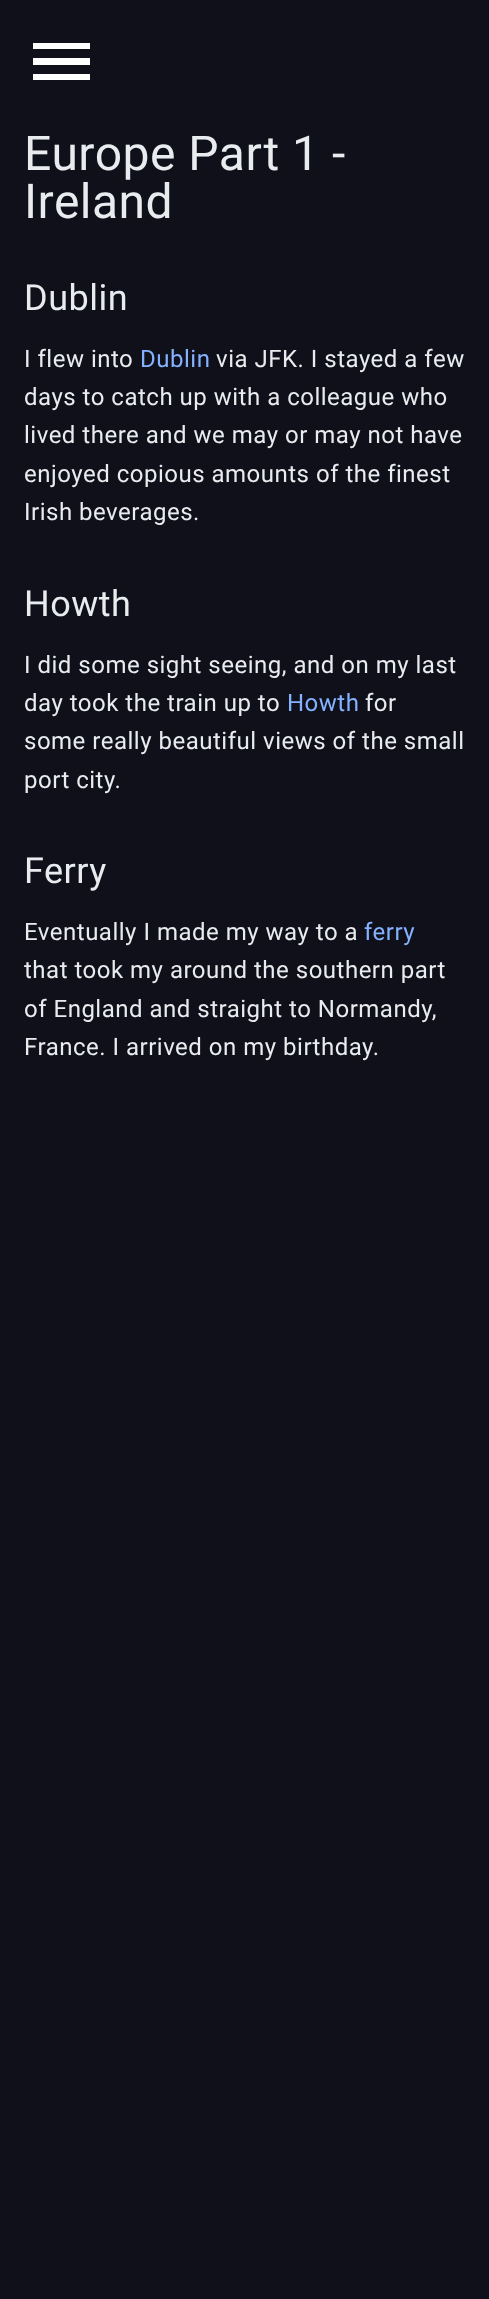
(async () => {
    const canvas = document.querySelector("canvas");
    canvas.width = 489;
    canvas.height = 2299;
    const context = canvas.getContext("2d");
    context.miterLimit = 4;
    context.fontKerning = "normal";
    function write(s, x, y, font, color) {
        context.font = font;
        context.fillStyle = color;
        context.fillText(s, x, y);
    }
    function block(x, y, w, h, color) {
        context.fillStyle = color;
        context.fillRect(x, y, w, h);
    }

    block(0, 0, 489, 2299, "rgb(15, 16, 26)");
    context.fillStyle = "rgb(255, 255, 255)";
    context.beginPath();
    context.moveTo(33, 80);
    context.lineTo(90, 80);
    context.lineTo(90, 74);
    context.lineTo(33, 74);
    context.closePath();
    context.moveTo(33, 65);
    context.lineTo(90, 65);
    context.lineTo(90, 58);
    context.lineTo(33, 58);
    context.closePath();
    context.moveTo(33, 43);
    context.lineTo(33, 49);
    context.lineTo(90, 49);
    context.lineTo(90, 43);
    context.closePath();
    context.fill();
    context.letterSpacing = "0.5px";
    write("Europe Part 1 -", 24, 170, "48px Roboto", "rgb(233, 236, 239)");
    write("Ireland", 24, 218, "48px Roboto", "rgb(233, 236, 239)");
    write("Dublin", 24, 310, "36px Roboto", "rgb(233, 236, 239)");
    write("I flew into", 24, 367, "24px Roboto", "rgb(233, 236, 239)");
    write("Dublin", 140, 367, "24px Roboto", "rgb(132, 178, 255)");
    write("via JFK. I stayed a few", 216, 367, "24px Roboto", "rgb(233, 236, 239)");
    write("days to catch up with a colleague who", 24, 405, "24px Roboto", "rgb(233, 236, 239)");
    write("lived there and we may or may not have", 24, 443, "24px Roboto", "rgb(233, 236, 239)");
    write("enjoyed copious amounts of the finest", 24, 482, "24px Roboto", "rgb(233, 236, 239)");
    write("Irish beverages.", 24, 520, "24px Roboto", "rgb(233, 236, 239)");
    write("Howth", 24, 616, "36px Roboto", "rgb(233, 236, 239)");
    write("I did some sight seeing, and on my last", 24, 673, "24px Roboto", "rgb(233, 236, 239)");
    write("day took the train up to", 24, 711, "24px Roboto", "rgb(233, 236, 239)");
    write("Howth", 287, 711, "24px Roboto", "rgb(132, 178, 255)");
    write("for", 365, 711, "24px Roboto", "rgb(233, 236, 239)");
    write("some really beautiful views of the small", 24, 749, "24px Roboto", "rgb(233, 236, 239)");
    write("port city.", 24, 788, "24px Roboto", "rgb(233, 236, 239)");
    write("Ferry", 24, 883, "36px Roboto", "rgb(233, 236, 239)");
    write("Eventually I made my way to a", 24, 940, "24px Roboto", "rgb(233, 236, 239)");
    write("ferry", 364, 940, "24px Roboto", "rgb(132, 178, 255)");
    write("that took my around the southern part", 24, 978, "24px Roboto", "rgb(233, 236, 239)");
    write("of England and straight to Normandy,", 24, 1017, "24px Roboto", "rgb(233, 236, 239)");
    write("France. I arrived on my birthday.", 24, 1055, "24px Roboto", "rgb(233, 236, 239)");
})();
